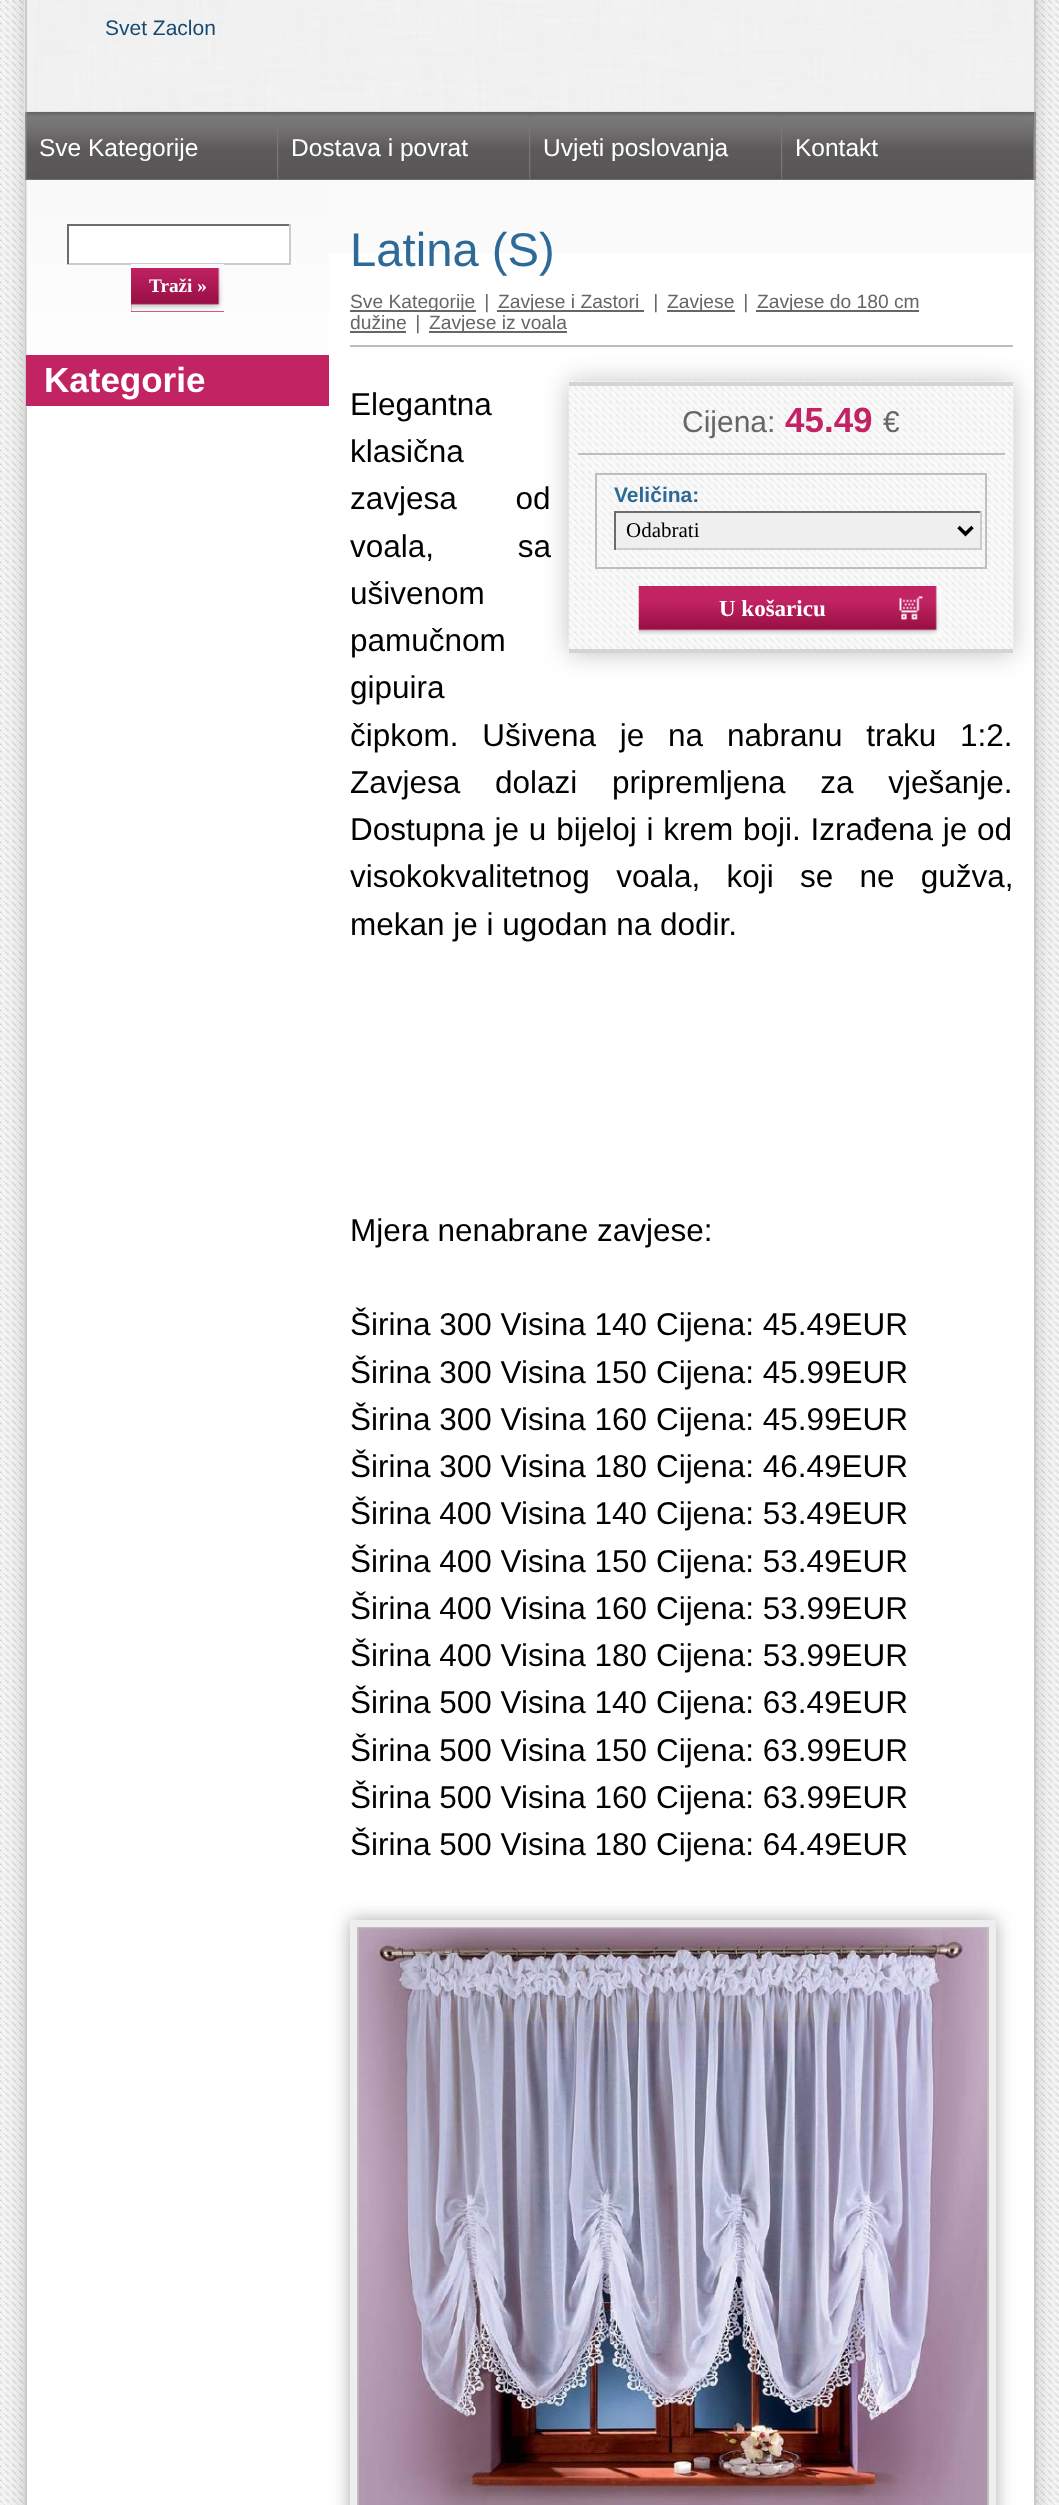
(async () => {
    const canvas = document.querySelector("canvas");
    canvas.width = 1059;
    canvas.height = 2505;
    const context = canvas.getContext("2d");
    context.miterLimit = 4;
    context.fontKerning = "normal";
    function write(s, x, y, font, color) {
        context.font = font;
        context.fillStyle = color;
        context.fillText(s, x, y);
    }
    function block(x, y, w, h, color) {
        context.fillStyle = color;
        context.fillRect(x, y, w, h);
    }
    async function photo(src, x, y, w, h) {
        const img = new Image();
        img.src = src;
        await img.decode();
        context.drawImage(img, x, y, w, h);
    }

    block(0, 0, 1059, 2505, "rgb(255, 255, 255)");
    await photo("media/1.png", 0, 0, 1059, 2505);
    context.fillStyle = "rgba(50, 50, 50, 0.25)";
    context.filter = "blur(9px)";
    context.beginPath();
    context.rect(25, 112, 1011, 68);
    context.fill();
    context.filter = "none";
    block(25, 112, 1011, 2, "rgb(109, 108, 108)");
    block(1034, 112, 2, 68, "rgb(150, 147, 147)");
    block(25, 112, 2, 68, "rgb(150, 147, 147)");
    await photo("media/3.png", 26, 116, 251, 63);
    block(26, 114, 252, 2, "rgb(121, 120, 121)");
    block(277, 114, 2, 66, "rgb(121, 120, 121)");
    await photo("media/4.png", 278, 116, 251, 63);
    block(278, 114, 252, 2, "rgb(121, 120, 121)");
    block(529, 114, 2, 66, "rgb(121, 120, 121)");
    await photo("media/4.png", 530, 116, 251, 63);
    block(530, 114, 252, 2, "rgb(121, 120, 121)");
    block(781, 114, 2, 66, "rgb(121, 120, 121)");
    await photo("media/5.png", 782, 115, 253, 65);
    block(782, 114, 252, 2, "rgb(121, 120, 121)");
    block(1033, 114, 1, 66, "rgb(121, 120, 121)");
    context.fillStyle = "rgba(50, 50, 50, 0.25)";
    context.filter = "blur(9px)";
    context.beginPath();
    context.rect(25, -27, 1011, 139);
    context.fill();
    context.filter = "none";
    await photo("media/2.png", 24, 0, 1010, 112);
    block(1034, 0, 2, 112, "rgb(201, 201, 201)");
    block(25, 0, 2, 112, "rgb(201, 201, 201)");
    write("Svet Zaclon", 105, 35, "21px Liberation Sans", "rgb(22, 74, 113)");
    block(26, 179, 252, 1, "rgb(121, 120, 121)");
    write("Sve Kategorije", 39, 156, "24.5px Liberation Sans", "rgb(255, 255, 255)");
    block(278, 179, 252, 1, "rgb(121, 120, 121)");
    write("Dostava i povrat", 291, 156, "24.5px Liberation Sans", "rgb(255, 255, 255)");
    block(530, 179, 252, 1, "rgb(121, 120, 121)");
    write("Uvjeti poslovanja", 543, 156, "24.5px Liberation Sans", "rgb(255, 255, 255)");
    block(782, 179, 252, 1, "rgb(121, 120, 121)");
    write("Kontakt", 795, 156, "24.5px Liberation Sans", "rgb(255, 255, 255)");
    context.fillStyle = "rgba(50, 50, 50, 0.25)";
    context.filter = "blur(9px)";
    context.beginPath();
    context.rect(25, 180, 1011, 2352);
    context.fill();
    context.filter = "none";
    block(27, 253, 1007, 2252, "rgb(255, 255, 255)");
    block(1034, 180, 2, 2325, "rgb(201, 201, 201)");
    block(25, 180, 2, 2325, "rgb(201, 201, 201)");
    await photo("media/6.png", 26, 180, 303, 228);
    block(69, 226, 220, 37, "rgb(255, 255, 255)");
    block(67, 224, 224, 2, "rgb(108, 108, 108)");
    block(289, 224, 2, 40, "rgb(204, 204, 204)");
    block(67, 263, 224, 2, "rgb(204, 204, 204)");
    block(67, 224, 2, 40, "rgb(108, 108, 108)");
    block(131, 268, 93, 44, "rgb(194, 36, 99)");
    await photo("media/7.png", 131, 268, 93, 44);
    block(131, 264, 93, 3, "rgb(250, 249, 249)");
    write("Traži »", 149, 292, "bold 19.25px Liberation Serif", "rgb(255, 255, 255)");
    block(26, 355, 303, 51, "rgb(194, 36, 99)");
    write("Kategorie", 44, 392, "bold 35px Liberation Sans", "rgb(255, 255, 255)");
    block(329, 180, 705, 73, "rgb(250, 250, 250)");
    write("Latina (S)", 350, 266, "47.25px Liberation Sans", "rgb(46, 106, 151)");
    block(350, 345, 663, 2, "rgb(190, 190, 190)");
    block(350, 310, 126, 2, "rgb(102, 102, 102)");
    write("Sve Kategorije", 350, 308, "19.25px Liberation Sans", "rgb(102, 102, 102)");
    write("|", 484, 308, "italic 19.25px Liberation Sans", "rgb(102, 102, 102)");
    block(497, 310, 147, 2, "rgb(102, 102, 102)");
    write("Zavjese i Zastori", 498, 308, "19.25px Liberation Sans", "rgb(102, 102, 102)");
    write("|", 653, 308, "italic 19.25px Liberation Sans", "rgb(102, 102, 102)");
    block(667, 310, 68, 2, "rgb(102, 102, 102)");
    write("Zavjese", 667, 308, "19.25px Liberation Sans", "rgb(102, 102, 102)");
    write("|", 743, 308, "italic 19.25px Liberation Sans", "rgb(102, 102, 102)");
    block(756, 310, 163, 2, "rgb(102, 102, 102)");
    write("Zavjese do 180 cm", 757, 308, "19.25px Liberation Sans", "rgb(102, 102, 102)");
    write("dužine", 350, 329, "19.25px Liberation Sans", "rgb(102, 102, 102)");
    block(350, 331, 56, 2, "rgb(102, 102, 102)");
    write("|", 415, 329, "italic 19.25px Liberation Sans", "rgb(102, 102, 102)");
    block(429, 331, 138, 2, "rgb(102, 102, 102)");
    write("Zavjese iz voala", 429, 329, "19.25px Liberation Sans", "rgb(102, 102, 102)");
    write("Elegantna", 350, 415, "31.5px Liberation Sans", "rgb(0, 0, 0)");
    write("klasična", 350, 462, "31.5px Liberation Sans", "rgb(0, 0, 0)");
    context.fillStyle = "rgba(48, 47, 47, 0.3)";
    context.filter = "blur(13px)";
    context.beginPath();
    context.rect(569, 382, 444, 271);
    context.fill();
    context.filter = "none";
    context.wordSpacing = "50px";
    write("zavjesa od", 350, 509, "31.5px Liberation Sans", "rgb(0, 0, 0)");
    context.wordSpacing = "75px";
    write("voala, sa", 350, 557, "31.5px Liberation Sans", "rgb(0, 0, 0)");
    context.wordSpacing = "0px";
    write("ušivenom", 350, 604, "31.5px Liberation Sans", "rgb(0, 0, 0)");
    write("pamučnom", 350, 651, "31.5px Liberation Sans", "rgb(0, 0, 0)");
    write("gipuira", 350, 698, "31.5px Liberation Sans", "rgb(0, 0, 0)");
    context.wordSpacing = "15px";
    write("čipkom. Ušivena je na nabranu traku 1:2.", 350, 746, "31.5px Liberation Sans", "rgb(0, 0, 0)");
    context.wordSpacing = "26px";
    write("Zavjesa dolazi pripremljena za vješanje.", 350, 793, "31.5px Liberation Sans", "rgb(0, 0, 0)");
    context.wordSpacing = "1px";
    write("Dostupna je u bijeloj i krem boji. Izrađena je od", 350, 840, "31.5px Liberation Sans", "rgb(0, 0, 0)");
    context.wordSpacing = "17.5px";
    write("visokokvalitetnog voala, koji se ne gužva,", 350, 887, "31.5px Liberation Sans", "rgb(0, 0, 0)");
    context.wordSpacing = "0px";
    write("mekan je i ugodan na dodir.", 350, 935, "31.5px Liberation Sans", "rgb(0, 0, 0)");
    write("Mjera nenabrane zavjese:", 350, 1241, "31.5px Liberation Sans", "rgb(0, 0, 0)");
    write("Širina 300 Visina 140 Cijena: 45.49EUR", 350, 1335, "31.5px Liberation Sans", "rgb(0, 0, 0)");
    write("Širina 300 Visina 150 Cijena: 45.99EUR", 350, 1383, "31.5px Liberation Sans", "rgb(0, 0, 0)");
    write("Širina 300 Visina 160 Cijena: 45.99EUR", 350, 1430, "31.5px Liberation Sans", "rgb(0, 0, 0)");
    write("Širina 300 Visina 180 Cijena: 46.49EUR", 350, 1477, "31.5px Liberation Sans", "rgb(0, 0, 0)");
    write("Širina 400 Visina 140 Cijena: 53.49EUR", 350, 1524, "31.5px Liberation Sans", "rgb(0, 0, 0)");
    write("Širina 400 Visina 150 Cijena: 53.49EUR", 350, 1572, "31.5px Liberation Sans", "rgb(0, 0, 0)");
    write("Širina 400 Visina 160 Cijena: 53.99EUR", 350, 1619, "31.5px Liberation Sans", "rgb(0, 0, 0)");
    write("Širina 400 Visina 180 Cijena: 53.99EUR", 350, 1666, "31.5px Liberation Sans", "rgb(0, 0, 0)");
    write("Širina 500 Visina 140 Cijena: 63.49EUR", 350, 1713, "31.5px Liberation Sans", "rgb(0, 0, 0)");
    write("Širina 500 Visina 150 Cijena: 63.99EUR", 350, 1761, "31.5px Liberation Sans", "rgb(0, 0, 0)");
    write("Širina 500 Visina 160 Cijena: 63.99EUR", 350, 1808, "31.5px Liberation Sans", "rgb(0, 0, 0)");
    write("Širina 500 Visina 180 Cijena: 64.49EUR", 350, 1855, "31.5px Liberation Sans", "rgb(0, 0, 0)");
    await photo("media/8.png", 568, 381, 446, 272);
    block(569, 382, 444, 4, "rgb(212, 212, 212)");
    block(569, 649, 444, 4, "rgb(212, 212, 212)");
    block(578, 453, 427, 2, "rgb(190, 190, 190)");
    write("Cijena:", 682, 432, "30px Liberation Sans", "rgb(102, 102, 102)");
    write("45.49", 785, 432, "bold 35px Liberation Sans", "rgb(194, 36, 99)");
    write("€", 883, 432, "30px Liberation Sans", "rgb(102, 102, 102)");
    context.strokeStyle = "rgb(190, 190, 190)";
    context.lineWidth = 2;
    context.strokeRect(596, 474, 390, 94);
    write("Veličina:", 614, 502, "bold 21px Liberation Sans", "rgb(46, 106, 151)");
    block(616, 513, 364, 35, "rgb(239, 239, 239)");
    block(614, 511, 368, 2, "rgb(108, 108, 108)");
    block(980, 511, 2, 39, "rgb(204, 204, 204)");
    block(614, 548, 368, 2, "rgb(204, 204, 204)");
    block(614, 511, 2, 39, "rgb(108, 108, 108)");
    context.beginPath();
    context.moveTo(958.5, 527);
    context.lineTo(965.5, 534);
    context.lineTo(972.5, 527);
    context.strokeStyle = "rgb(0, 0, 0)";
    context.lineWidth = 3.5;
    context.stroke();
    write("Odabrati", 626, 537, "21px Liberation Serif", "rgb(0, 0, 0)");
    await photo("media/9.png", 638, 586, 304, 51);
    write("U košaricu", 719, 616, "bold 23px Liberation Serif", "rgb(255, 255, 255)");
    context.fillStyle = "rgba(48, 47, 47, 0.4)";
    context.filter = "blur(9px)";
    context.beginPath();
    context.rect(350, 1920, 646, 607);
    context.fill();
    context.filter = "none";
    context.fillStyle = "rgb(192, 191, 191)";
    context.beginPath();
    context.rect(353.5, 1923.5, 639, 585);
    context.fill();
    context.strokeStyle = "rgb(238, 238, 238)";
    context.lineWidth = 7;
    context.stroke();
    await photo("media/10.png", 358, 1928, 629, 577);
})();
